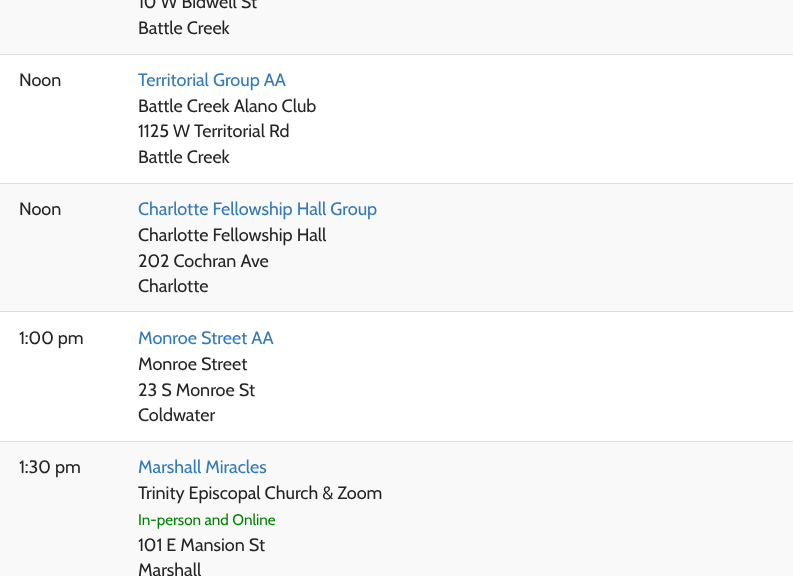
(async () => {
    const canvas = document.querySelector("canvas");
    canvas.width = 793;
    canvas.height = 576;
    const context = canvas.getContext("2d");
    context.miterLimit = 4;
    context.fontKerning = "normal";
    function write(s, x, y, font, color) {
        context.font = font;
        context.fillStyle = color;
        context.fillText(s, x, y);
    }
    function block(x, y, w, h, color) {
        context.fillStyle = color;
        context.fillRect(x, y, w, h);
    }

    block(0, 0, 793, 576, "rgb(255, 255, 255)");
    block(0, 0, 793, 54, "rgb(249, 249, 249)");
    write("10 W Bidwell St", 138, 8, "18px Cabin", "rgb(37, 37, 37)");
    write("Battle Creek", 138, 34, "18px Cabin", "rgb(37, 37, 37)");
    block(0, 54, 793, 1, "rgb(221, 221, 221)");
    write("Noon", 19, 86, "18px Cabin", "rgb(37, 37, 37)");
    write("Territorial Group AA", 138, 86, "18px Cabin", "rgb(51, 122, 183)");
    write("Battle Creek Alano Club", 138, 112, "18px Cabin", "rgb(37, 37, 37)");
    write("1125 W Territorial Rd", 138, 137, "18px Cabin", "rgb(37, 37, 37)");
    write("Battle Creek", 138, 163, "18px Cabin", "rgb(37, 37, 37)");
    block(0, 184, 793, 127, "rgb(249, 249, 249)");
    block(0, 183, 793, 1, "rgb(221, 221, 221)");
    write("Noon", 19, 215, "18px Cabin", "rgb(37, 37, 37)");
    write("Charlotte Fellowship Hall Group", 138, 215, "18px Cabin", "rgb(51, 122, 183)");
    write("Charlotte Fellowship Hall", 138, 241, "18px Cabin", "rgb(37, 37, 37)");
    write("202 Cochran Ave", 138, 267, "18px Cabin", "rgb(37, 37, 37)");
    write("Charlotte", 138, 292, "18px Cabin", "rgb(37, 37, 37)");
    block(0, 311, 793, 1, "rgb(221, 221, 221)");
    write("1:00 pm", 19, 344, "18px Cabin", "rgb(37, 37, 37)");
    write("Monroe Street AA", 138, 344, "18px Cabin", "rgb(51, 122, 183)");
    write("Monroe Street", 138, 370, "18px Cabin", "rgb(37, 37, 37)");
    write("23 S Monroe St", 138, 396, "18px Cabin", "rgb(37, 37, 37)");
    write("Coldwater", 138, 421, "18px Cabin", "rgb(37, 37, 37)");
    block(0, 442, 793, 134, "rgb(249, 249, 249)");
    block(0, 441, 793, 1, "rgb(221, 221, 221)");
    write("1:30 pm", 19, 473, "18px Cabin", "rgb(37, 37, 37)");
    write("Marshall Miracles", 138, 473, "18px Cabin", "rgb(51, 122, 183)");
    write("Trinity Episcopal Church & Zoom", 138, 499, "18px Cabin", "rgb(37, 37, 37)");
    write("In-person and Online", 138, 525, "15.25px Cabin", "rgb(0, 128, 0)");
    write("101 E Mansion St", 138, 551, "18px Cabin", "rgb(37, 37, 37)");
    write("Marshall", 138, 576, "18px Cabin", "rgb(37, 37, 37)");
})();
